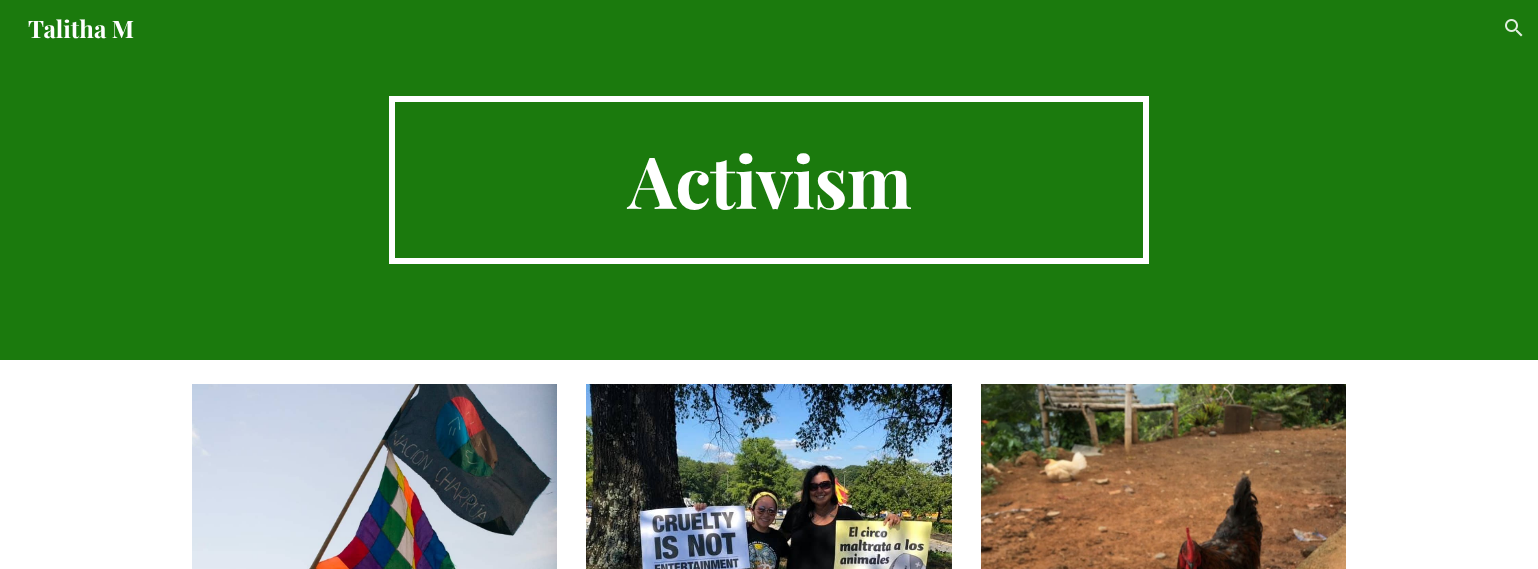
(async () => {
    const canvas = document.querySelector("canvas");
    canvas.width = 1538;
    canvas.height = 569;
    const context = canvas.getContext("2d");
    context.miterLimit = 4;
    context.fontKerning = "normal";
    function write(s, x, y, font, color) {
        context.font = font;
        context.fillStyle = color;
        context.fillText(s, x, y);
    }
    function block(x, y, w, h, color) {
        context.fillStyle = color;
        context.fillRect(x, y, w, h);
    }
    async function photo(src, x, y, w, h) {
        const img = new Image();
        img.src = src;
        await img.decode();
        context.drawImage(img, x, y, w, h);
    }

    block(0, 0, 1538, 569, "rgb(255, 255, 255)");
    block(0, 0, 1538, 360, "rgb(27, 122, 13)");
    write("Talitha M", 28, 38, "bold 24px Playfair Display", "rgb(255, 255, 255)");
    await photo("media/1.png", 1505, 19, 18, 18);
    context.strokeStyle = "rgb(255, 255, 255)";
    context.lineWidth = 6;
    context.strokeRect(392, 99, 754, 162);
    context.letterSpacing = "-0.75px";
    write("Activism", 628, 209, "bold 72px Playfair Display", "rgb(255, 255, 255)");
    await photo("media/2.png", 192, 384, 365, 185);
    await photo("media/3.png", 586, 384, 366, 185);
    await photo("media/4.png", 981, 384, 365, 185);
})();
